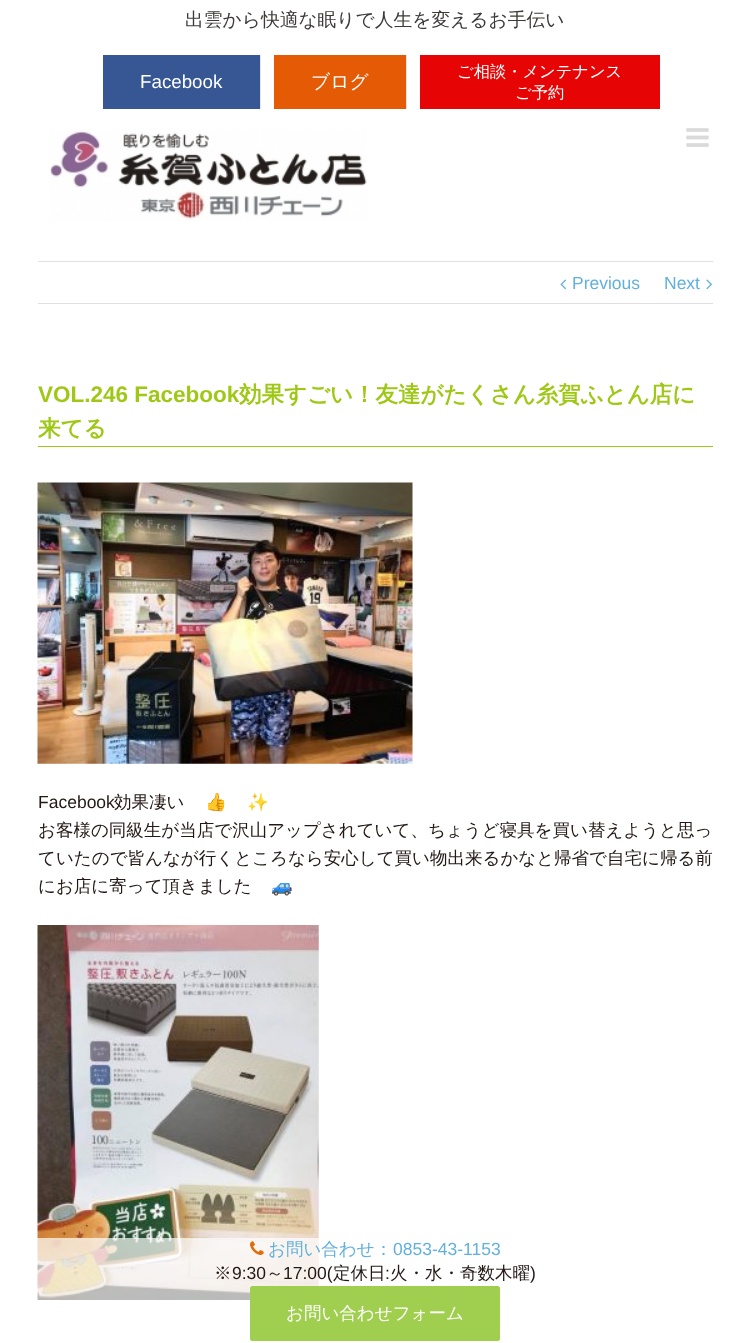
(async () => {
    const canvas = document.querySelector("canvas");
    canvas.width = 750;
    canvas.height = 1343;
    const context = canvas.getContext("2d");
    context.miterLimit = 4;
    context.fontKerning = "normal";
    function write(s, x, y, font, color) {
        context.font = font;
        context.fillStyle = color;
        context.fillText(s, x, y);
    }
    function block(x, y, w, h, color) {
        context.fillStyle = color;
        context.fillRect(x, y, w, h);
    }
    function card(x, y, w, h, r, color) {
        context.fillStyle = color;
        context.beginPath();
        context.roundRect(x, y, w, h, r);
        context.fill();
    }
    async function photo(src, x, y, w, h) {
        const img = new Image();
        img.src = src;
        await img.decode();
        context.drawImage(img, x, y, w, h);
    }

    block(0, 0, 750, 1343, "rgb(255, 255, 255)");
    write("出雲から快適な眠りで人生を変えるお手伝い", 185, 26, "500 18.75px WenQuanYi Zen Hei", "rgb(62, 58, 57)");
    block(103, 55, 157, 54, "rgb(55, 87, 148)");
    write("Facebook", 140, 88, "18.75px Liberation Sans", "rgb(255, 255, 255)");
    block(260, 55, 1, 55, "rgb(229, 229, 229)");
    block(274, 55, 132, 54, "rgb(229, 90, 5)");
    write("ブログ", 311, 88, "500 18.75px WenQuanYi Zen Hei", "rgb(255, 255, 255)");
    block(406, 55, 1, 55, "rgb(229, 229, 229)");
    block(420, 55, 240, 54, "rgb(231, 4, 4)");
    write("ご相談・メンテナンス", 457, 77, "500 16.25px WenQuanYi Zen Hei", "rgb(255, 255, 255)");
    write("ご予約", 515, 98, "500 16.25px WenQuanYi Zen Hei", "rgb(255, 255, 255)");
    block(260, 109, 147, 1, "rgb(255, 255, 255)");
    await photo("media/1.png", 50, 129, 317, 92);
    await photo("media/2.png", 686, 128, 23, 19);
    block(38, 261, 675, 1, "rgb(224, 222, 222)");
    block(38, 303, 675, 1, "rgb(224, 222, 222)");
    await photo("media/3.png", 560, 279, 7, 11);
    write("Previous", 572, 289, "17.5px Liberation Sans", "rgb(99, 176, 220)");
    write("Next", 664, 289, "17.5px Liberation Sans", "rgb(99, 176, 220)");
    await photo("media/4.png", 706, 279, 6, 11);
    block(38, 446, 675, 1, "rgb(159, 200, 22)");
    write("VOL.246 Facebook", 38, 402, "bold 22.5px Liberation Sans", "rgb(159, 200, 22)");
    write("効果すごい！友達がたくさん糸賀ふとん店に", 239, 402, "bold 22.5px WenQuanYi Zen Hei", "rgb(159, 200, 22)");
    write("来てる", 38, 436, "bold 22.5px WenQuanYi Zen Hei", "rgb(159, 200, 22)");
    await photo("media/5.png", 37, 482, 376, 282);
    write("Facebook", 38, 808, "17.5px Liberation Sans", "rgb(35, 24, 22)");
    write("効果凄い", 114, 808, "500 17.5px WenQuanYi Zen Hei", "rgb(35, 24, 22)");
    write("👍", 205, 808, "17.5px Noto Color Emoji", "rgb(35, 24, 22)");
    write("✨", 247, 808, "17.5px Noto Color Emoji", "rgb(35, 24, 22)");
    write("お客様の同級生が当店で沢山アップされていて、ちょうど寝具を買い替えようと思っ", 38, 836, "500 17.5px WenQuanYi Zen Hei", "rgb(35, 24, 22)");
    write("ていたので皆んなが行くところなら安心して買い物出来るかなと帰省で自宅に帰る前", 38, 864, "500 17.5px WenQuanYi Zen Hei", "rgb(35, 24, 22)");
    write("にお店に寄って頂きました", 38, 892, "500 17.5px WenQuanYi Zen Hei", "rgb(35, 24, 22)");
    write("🚙", 271, 892, "17.5px Noto Color Emoji", "rgb(35, 24, 22)");
    await photo("media/6.png", 37, 925, 282, 375);
    block(37, 1238, 282, 62, "rgba(255, 255, 255, 0.7)");
    await photo("media/7.png", 250, 1241, 14, 14);
    write("お問い合わせ：", 268, 1255, "500 17.5px WenQuanYi Zen Hei", "rgb(99, 176, 220)");
    write("0853-43-1153", 393, 1255, "17.5px Liberation Sans", "rgb(99, 176, 220)");
    write("※", 214, 1279, "500 17.5px WenQuanYi Zen Hei", "rgb(35, 24, 22)");
    write("9:30", 232, 1279, "17.5px Liberation Sans", "rgb(35, 24, 22)");
    write("～", 266, 1279, "500 17.5px WenQuanYi Zen Hei", "rgb(35, 24, 22)");
    write("17:00(", 283, 1279, "17.5px Liberation Sans", "rgb(35, 24, 22)");
    write("定休日", 333, 1279, "500 17.5px WenQuanYi Zen Hei", "rgb(35, 24, 22)");
    write(":", 385, 1279, "17.5px Liberation Sans", "rgb(35, 24, 22)");
    write("火・水・奇数木曜", 390, 1279, "500 17.5px WenQuanYi Zen Hei", "rgb(35, 24, 22)");
    write(")", 530, 1279, "17.5px Liberation Sans", "rgb(35, 24, 22)");
    card(250, 1286, 250, 55, 2.5, "rgb(160, 206, 78)");
    write("お問い合わせフォーム", 286, 1319, "500 17.5px WenQuanYi Zen Hei", "rgb(255, 255, 255)");
})();
